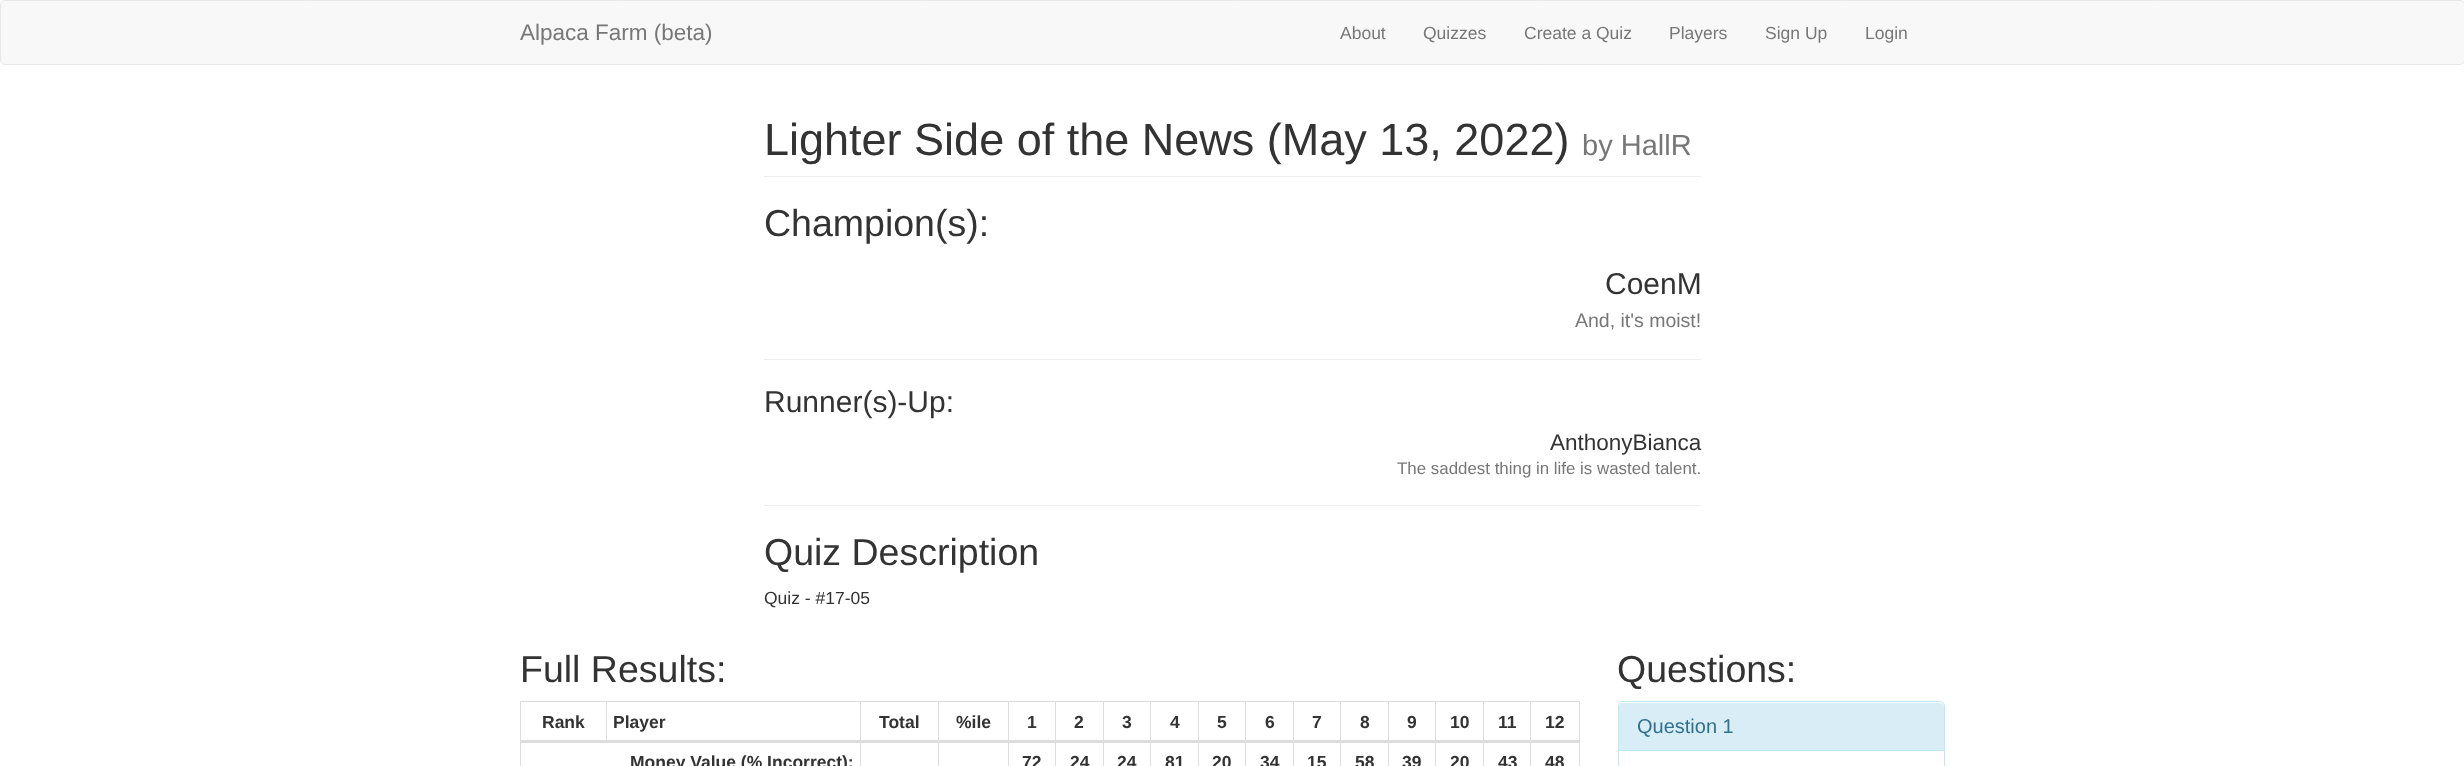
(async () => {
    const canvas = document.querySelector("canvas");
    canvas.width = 2464;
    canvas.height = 766;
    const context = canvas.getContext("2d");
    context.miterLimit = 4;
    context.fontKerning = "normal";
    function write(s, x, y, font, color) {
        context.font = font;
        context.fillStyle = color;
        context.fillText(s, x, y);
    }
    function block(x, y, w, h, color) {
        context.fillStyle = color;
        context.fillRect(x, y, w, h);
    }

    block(0, 0, 2464, 766, "rgb(255, 255, 255)");
    context.fillStyle = "rgb(248, 248, 248)";
    context.beginPath();
    context.roundRect(0.5, 0.5, 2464, 64, 4.5);
    context.fill();
    context.strokeStyle = "rgb(231, 231, 231)";
    context.stroke();
    write("Alpaca Farm (beta)", 520, 40, "22.5px Liberation Sans", "rgb(119, 119, 119)");
    write("About", 1340, 39, "17.5px Liberation Sans", "rgb(119, 119, 119)");
    write("Quizzes", 1423, 39, "17.5px Liberation Sans", "rgb(119, 119, 119)");
    write("Create a Quiz", 1524, 39, "17.5px Liberation Sans", "rgb(119, 119, 119)");
    write("Players", 1669, 39, "17.5px Liberation Sans", "rgb(119, 119, 119)");
    write("Sign Up", 1765, 39, "17.5px Liberation Sans", "rgb(119, 119, 119)");
    write("Login", 1865, 39, "17.5px Liberation Sans", "rgb(119, 119, 119)");
    block(764, 176, 937, 1, "rgb(238, 238, 238)");
    write("Lighter Side of the News (May 13, 2022)", 764, 155, "45px Liberation Sans", "rgb(51, 51, 51)");
    write("by HallR", 1582, 155, "29px Liberation Sans", "rgb(119, 119, 119)");
    write("Champion(s):", 764, 236, "37.5px Liberation Sans", "rgb(51, 51, 51)");
    write("CoenM", 1605, 294, "30px Liberation Sans", "rgb(51, 51, 51)");
    write("And, it's moist!", 1575, 327, "19.5px Liberation Sans", "rgb(119, 119, 119)");
    block(764, 359, 937, 1, "rgb(238, 238, 238)");
    write("Runner(s)-Up:", 764, 412, "30px Liberation Sans", "rgb(51, 51, 51)");
    write("AnthonyBianca", 1550, 450, "22.5px Liberation Sans", "rgb(51, 51, 51)");
    write("The saddest thing in life is wasted talent.", 1397, 474, "16.9px Liberation Sans", "rgb(119, 119, 119)");
    block(764, 505, 937, 1, "rgb(238, 238, 238)");
    write("Quiz Description", 764, 565, "37.5px Liberation Sans", "rgb(51, 51, 51)");
    write("Quiz - #17-05", 764, 604, "17.5px Liberation Sans", "rgb(51, 51, 51)");
    write("Full Results:", 520, 682, "37.5px Liberation Sans", "rgb(51, 51, 51)");
    block(520, 701, 1060, 1, "rgb(221, 221, 221)");
    block(1579, 701, 1, 65, "rgb(221, 221, 221)");
    block(520, 701, 1, 65, "rgb(221, 221, 221)");
    write("Rank", 542, 728, "bold 17.5px Liberation Sans", "rgb(51, 51, 51)");
    block(606, 701, 1, 42, "rgb(221, 221, 221)");
    write("Player", 613, 728, "bold 17.5px Liberation Sans", "rgb(51, 51, 51)");
    write("Total", 879, 728, "bold 17.5px Liberation Sans", "rgb(51, 51, 51)");
    write("%ile", 956, 728, "bold 17.5px Liberation Sans", "rgb(51, 51, 51)");
    write("1", 1027, 728, "bold 17.5px Liberation Sans", "rgb(51, 51, 51)");
    write("2", 1074, 728, "bold 17.5px Liberation Sans", "rgb(51, 51, 51)");
    write("3", 1122, 728, "bold 17.5px Liberation Sans", "rgb(51, 51, 51)");
    write("4", 1170, 728, "bold 17.5px Liberation Sans", "rgb(51, 51, 51)");
    write("5", 1217, 728, "bold 17.5px Liberation Sans", "rgb(51, 51, 51)");
    write("6", 1265, 728, "bold 17.5px Liberation Sans", "rgb(51, 51, 51)");
    write("7", 1312, 728, "bold 17.5px Liberation Sans", "rgb(51, 51, 51)");
    write("8", 1360, 728, "bold 17.5px Liberation Sans", "rgb(51, 51, 51)");
    write("9", 1407, 728, "bold 17.5px Liberation Sans", "rgb(51, 51, 51)");
    write("10", 1450, 728, "bold 17.5px Liberation Sans", "rgb(51, 51, 51)");
    write("11", 1498, 728, "bold 17.5px Liberation Sans", "rgb(51, 51, 51)");
    block(860, 701, 1, 65, "rgb(221, 221, 221)");
    block(938, 701, 1, 65, "rgb(221, 221, 221)");
    block(1008, 701, 1, 65, "rgb(221, 221, 221)");
    block(1055, 701, 1, 65, "rgb(221, 221, 221)");
    block(1103, 701, 1, 65, "rgb(221, 221, 221)");
    block(1150, 701, 1, 65, "rgb(221, 221, 221)");
    block(1198, 701, 1, 65, "rgb(221, 221, 221)");
    block(1245, 701, 1, 65, "rgb(221, 221, 221)");
    block(1293, 701, 1, 65, "rgb(221, 221, 221)");
    block(1340, 701, 1, 65, "rgb(221, 221, 221)");
    block(1388, 701, 1, 65, "rgb(221, 221, 221)");
    block(1435, 701, 1, 65, "rgb(221, 221, 221)");
    block(1483, 701, 1, 65, "rgb(221, 221, 221)");
    block(1530, 701, 1, 65, "rgb(221, 221, 221)");
    block(520, 740, 1060, 3, "rgb(221, 221, 221)");
    write("12", 1545, 728, "bold 17.5px Liberation Sans", "rgb(51, 51, 51)");
    write("Money Value (% Incorrect):", 630, 768, "bold 17.5px Liberation Sans", "rgb(51, 51, 51)");
    write("72", 1022, 768, "bold 17.5px Liberation Sans", "rgb(51, 51, 51)");
    write("24", 1070, 768, "bold 17.5px Liberation Sans", "rgb(51, 51, 51)");
    write("24", 1117, 768, "bold 17.5px Liberation Sans", "rgb(51, 51, 51)");
    write("81", 1165, 768, "bold 17.5px Liberation Sans", "rgb(51, 51, 51)");
    write("20", 1212, 768, "bold 17.5px Liberation Sans", "rgb(51, 51, 51)");
    write("34", 1260, 768, "bold 17.5px Liberation Sans", "rgb(51, 51, 51)");
    write("15", 1307, 768, "bold 17.5px Liberation Sans", "rgb(51, 51, 51)");
    write("58", 1355, 768, "bold 17.5px Liberation Sans", "rgb(51, 51, 51)");
    write("39", 1402, 768, "bold 17.5px Liberation Sans", "rgb(51, 51, 51)");
    write("20", 1450, 768, "bold 17.5px Liberation Sans", "rgb(51, 51, 51)");
    write("43", 1498, 768, "bold 17.5px Liberation Sans", "rgb(51, 51, 51)");
    write("48", 1545, 768, "bold 17.5px Liberation Sans", "rgb(51, 51, 51)");
    write("Questions:", 1617, 682, "37.5px Liberation Sans", "rgb(51, 51, 51)");
    context.beginPath();
    context.roundRect(1618.5, 701.5, 326, 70, 4.5);
    context.strokeStyle = "rgb(188, 232, 241)";
    context.stroke();
    context.fillStyle = "rgb(217, 237, 247)";
    context.beginPath();
    context.roundRect(1619, 703, 325, 48, [4, 4, 0, 0]);
    context.fill();
    block(1619, 750, 325, 1, "rgb(188, 232, 241)");
    write("Question 1", 1637, 733, "20px Liberation Sans", "rgb(49, 112, 143)");
})();
